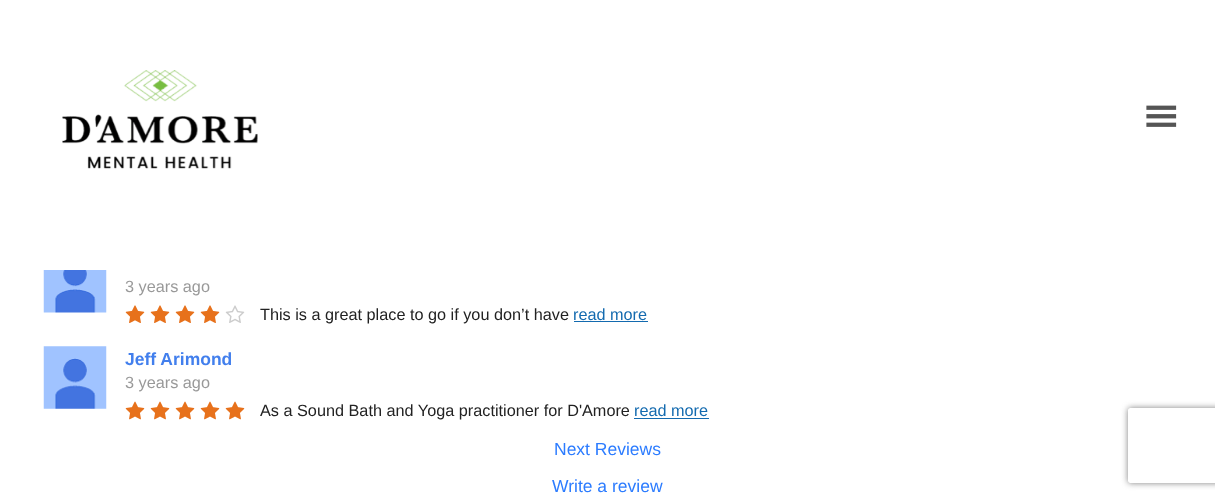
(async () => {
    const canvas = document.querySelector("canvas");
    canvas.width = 1215;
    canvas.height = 500;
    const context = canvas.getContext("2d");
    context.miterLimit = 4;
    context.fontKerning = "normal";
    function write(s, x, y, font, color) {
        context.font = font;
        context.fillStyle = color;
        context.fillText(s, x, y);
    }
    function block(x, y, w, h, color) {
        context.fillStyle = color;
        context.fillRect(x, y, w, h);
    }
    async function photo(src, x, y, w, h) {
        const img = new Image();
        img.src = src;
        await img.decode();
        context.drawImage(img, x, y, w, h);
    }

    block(0, 0, 1215, 500, "rgb(255, 255, 255)");
    await photo("media/1.png", 62, 70, 196, 99);
    await photo("media/2.png", 1146, 105, 31, 22);
    await photo("media/3.png", 43, 270, 64, 43);
    write("3 years ago", 125, 292, "16.25px Liberation Sans", "rgb(153, 153, 153)");
    await photo("media/4.png", 125, 305, 20, 18);
    await photo("media/4.png", 150, 305, 20, 18);
    await photo("media/4.png", 175, 305, 20, 18);
    await photo("media/4.png", 200, 305, 20, 18);
    await photo("media/5.png", 225, 305, 20, 18);
    write("This is a great place to go if you don’t have", 260, 320, "16.25px Liberation Sans", "rgb(34, 34, 34)");
    write("read more", 573, 320, "16.25px Liberation Sans", "rgb(19, 106, 175)");
    block(574, 321, 74, 1, "rgb(19, 106, 175)");
    await photo("media/6.png", 43, 346, 64, 63);
    write("Jeff Arimond", 125, 365, "bold 17.5px Liberation Sans", "rgb(66, 127, 237)");
    write("3 years ago", 125, 388, "16.25px Liberation Sans", "rgb(153, 153, 153)");
    await photo("media/7.png", 125, 401, 20, 19);
    await photo("media/7.png", 150, 401, 20, 19);
    await photo("media/7.png", 175, 401, 20, 19);
    await photo("media/7.png", 200, 401, 20, 19);
    await photo("media/7.png", 225, 401, 20, 19);
    write("As a Sound Bath and Yoga practitioner for D'Amore", 260, 416, "16.25px Liberation Sans", "rgb(34, 34, 34)");
    write("read more", 634, 416, "16.25px Liberation Sans", "rgb(19, 106, 175)");
    block(634, 418, 75, 1, "rgb(19, 106, 175)");
    write("Next Reviews", 554, 455, "17.5px Liberation Sans", "rgb(44, 124, 255)");
    write("Write a review", 552, 492, "17.5px Liberation Sans", "rgb(44, 124, 255)");
    context.save();
    context.beginPath();
    context.moveTo(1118, 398);
    context.lineTo(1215, 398);
    context.lineTo(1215, 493);
    context.lineTo(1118, 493);
    context.closePath();
    context.moveTo(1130.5, 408);
    context.lineTo(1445.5, 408);
    context.bezierCurveTo(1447, 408, 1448, 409, 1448, 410.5);
    context.lineTo(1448, 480.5);
    context.bezierCurveTo(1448, 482, 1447, 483, 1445.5, 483);
    context.lineTo(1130.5, 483);
    context.bezierCurveTo(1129, 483, 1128, 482, 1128, 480.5);
    context.lineTo(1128, 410.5);
    context.bezierCurveTo(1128, 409, 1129, 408, 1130.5, 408);
    context.closePath();
    context.clip("evenodd");
    context.fillStyle = "rgb(128, 128, 128)";
    context.filter = "blur(3px)";
    context.beginPath();
    context.roundRect(1128, 408, 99, 75, 2.5);
    context.fill();
    context.filter = "none";
    context.restore();
})();
